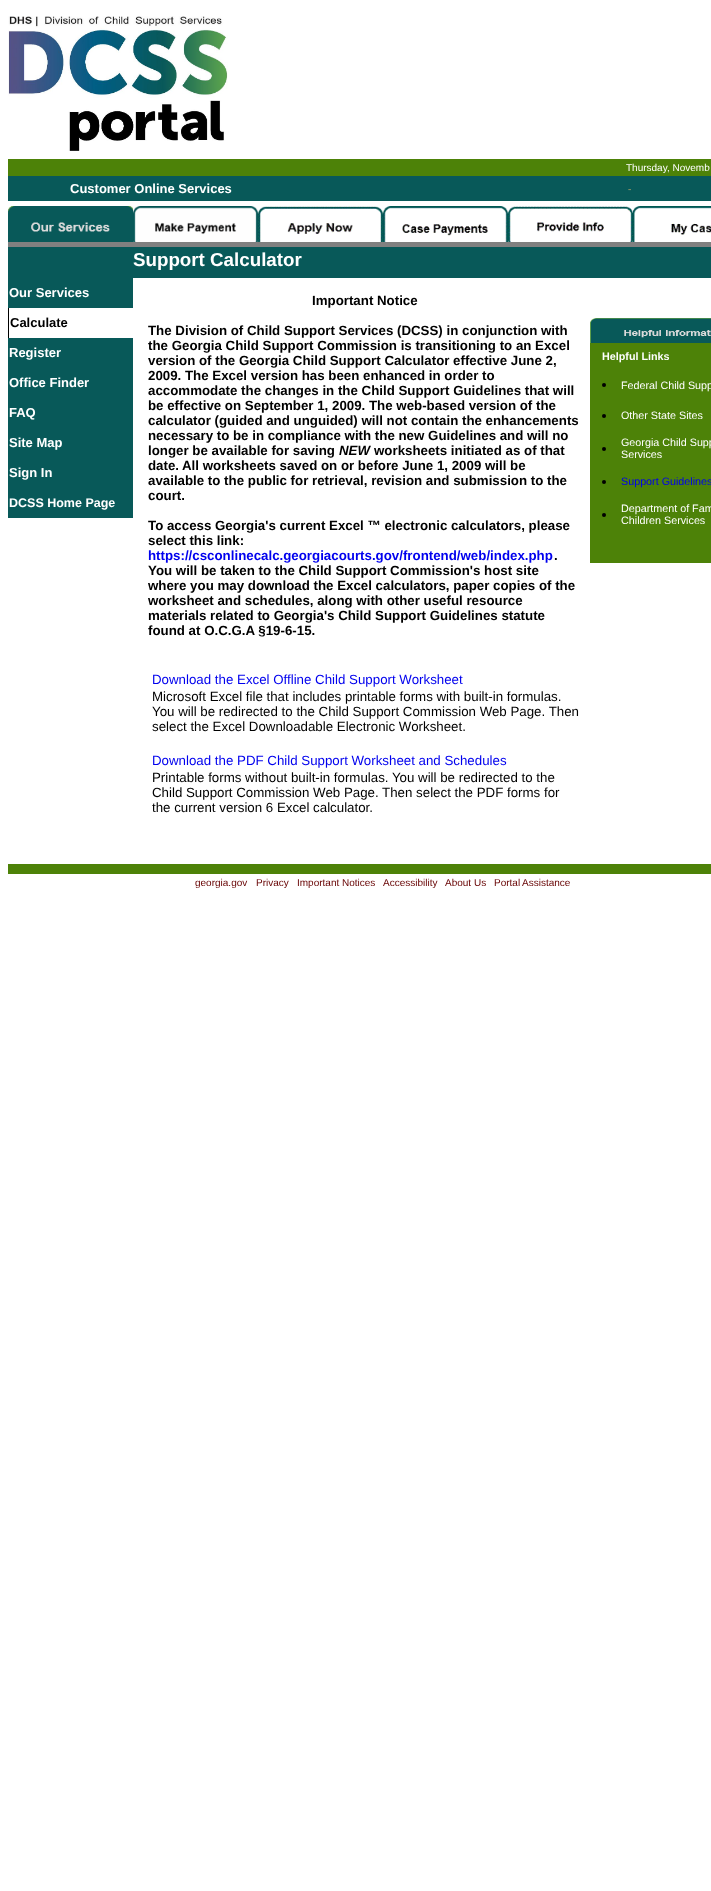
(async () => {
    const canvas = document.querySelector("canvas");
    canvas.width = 711;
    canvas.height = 1891;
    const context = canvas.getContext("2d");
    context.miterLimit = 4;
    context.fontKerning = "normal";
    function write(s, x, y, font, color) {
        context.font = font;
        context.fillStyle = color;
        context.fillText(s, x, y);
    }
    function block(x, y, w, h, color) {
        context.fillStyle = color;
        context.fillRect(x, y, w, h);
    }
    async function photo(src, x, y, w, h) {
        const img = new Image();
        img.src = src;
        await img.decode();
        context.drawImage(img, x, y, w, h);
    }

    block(0, 0, 711, 1891, "rgb(255, 255, 255)");
    await photo("media/1.png", 8, 16, 220, 135);
    block(8, 159, 703, 17, "rgb(77, 130, 8)");
    write("Thursday, Novemb", 626, 171, "10px Liberation Sans", "rgb(255, 255, 255)");
    block(8, 176, 703, 25, "rgb(8, 89, 89)");
    write("Customer Online Services", 70, 193, "bold 13px Liberation Sans", "rgb(255, 255, 255)");
    write("-", 628, 192, "bold 10px Liberation Serif", "rgb(153, 153, 102)");
    block(8, 232, 125, 10, "rgb(8, 89, 89)");
    await photo("media/2.png", 8, 206, 125, 26);
    await photo("media/3.png", 133, 206, 125, 36);
    await photo("media/4.png", 258, 206, 125, 36);
    await photo("media/5.png", 383, 206, 125, 36);
    await photo("media/6.png", 508, 206, 125, 36);
    await photo("media/7.png", 633, 206, 78, 36);
    block(8, 247, 703, 31, "rgb(8, 89, 89)");
    block(8, 242, 703, 5, "rgb(128, 128, 128)");
    write("Support Calculator", 133, 266, "bold 18.75px Liberation Sans", "rgb(255, 255, 255)");
    block(8, 278, 125, 30, "rgb(8, 89, 89)");
    write("Our Services", 9, 297, "bold 13px Liberation Sans", "rgb(255, 255, 255)");
    block(8, 308, 1, 30, "rgb(0, 0, 0)");
    write("Calculate", 10, 327, "bold 13px Liberation Sans", "rgb(0, 0, 0)");
    block(8, 338, 125, 180, "rgb(8, 89, 89)");
    write("Register", 9, 357, "bold 13px Liberation Sans", "rgb(255, 255, 255)");
    write("Office Finder", 9, 387, "bold 13px Liberation Sans", "rgb(255, 255, 255)");
    write("FAQ", 9, 417, "bold 13px Liberation Sans", "rgb(255, 255, 255)");
    write("Site Map", 9, 447, "bold 13px Liberation Sans", "rgb(255, 255, 255)");
    write("Sign In", 9, 477, "bold 13px Liberation Sans", "rgb(255, 255, 255)");
    write("DCSS Home Page", 9, 507, "bold 12.5px Liberation Sans", "rgb(255, 255, 255)");
    write("Important Notice", 312, 305, "bold 13.3px Liberation Sans", "rgb(0, 0, 0)");
    write("The Division of Child Support Services (DCSS) in conjunction with", 148, 335, "bold 13.3px Liberation Sans", "rgb(0, 0, 0)");
    write("the Georgia Child Support Commission is transitioning to an Excel", 148, 350, "bold 13.3px Liberation Sans", "rgb(0, 0, 0)");
    write("version of the Georgia Child Support Calculator effective June 2,", 148, 365, "bold 13.3px Liberation Sans", "rgb(0, 0, 0)");
    write("2009. The Excel version has been enhanced in order to", 148, 380, "bold 13.3px Liberation Sans", "rgb(0, 0, 0)");
    write("accommodate the changes in the Child Support Guidelines that will", 148, 395, "bold 13.3px Liberation Sans", "rgb(0, 0, 0)");
    write("be effective on September 1, 2009. The web-based version of the", 148, 410, "bold 13.3px Liberation Sans", "rgb(0, 0, 0)");
    write("calculator (guided and unguided) will not contain the enhancements", 148, 425, "bold 13.3px Liberation Sans", "rgb(0, 0, 0)");
    write("necessary to be in compliance with the new Guidelines and will no", 148, 440, "bold 13.3px Liberation Sans", "rgb(0, 0, 0)");
    write("longer be available for saving", 148, 455, "bold 13.3px Liberation Sans", "rgb(0, 0, 0)");
    write("NEW", 339, 455, "italic bold 13.3px Liberation Sans", "rgb(0, 0, 0)");
    write("worksheets initiated as of that", 374, 455, "bold 13.3px Liberation Sans", "rgb(0, 0, 0)");
    write("date.", 148, 470, "bold 13.3px Liberation Sans", "rgb(0, 0, 0)");
    write("All worksheets saved on or before June 1, 2009 will be", 182, 470, "bold 13.3px Liberation Sans", "rgb(0, 0, 0)");
    write("available to the public for retrieval, revision and submission to the", 148, 485, "bold 13.3px Liberation Sans", "rgb(0, 0, 0)");
    write("court.", 148, 500, "bold 13.3px Liberation Sans", "rgb(0, 0, 0)");
    write("To access Georgia's current Excel ™ electronic calculators, please", 148, 530, "bold 13.3px Liberation Sans", "rgb(0, 0, 0)");
    write("select this link:", 148, 545, "bold 13.3px Liberation Sans", "rgb(0, 0, 0)");
    write("https://csconlinecalc.georgiacourts.gov/frontend/web/index.php", 148, 560, "bold 13.3px Liberation Sans", "rgb(0, 0, 238)");
    write(".", 554, 560, "bold 13.3px Liberation Sans", "rgb(0, 0, 0)");
    write("You will be taken to the Child Support Commission's host site", 148, 575, "bold 13.3px Liberation Sans", "rgb(0, 0, 0)");
    write("where you may download the Excel calculators, paper copies of the", 148, 590, "bold 13.3px Liberation Sans", "rgb(0, 0, 0)");
    write("worksheet and schedules, along with other useful resource", 148, 605, "bold 13.3px Liberation Sans", "rgb(0, 0, 0)");
    write("materials related to Georgia's Child Support Guidelines statute", 148, 620, "bold 13.3px Liberation Sans", "rgb(0, 0, 0)");
    write("found at O.C.G.A §19-6-15.", 148, 635, "bold 13.3px Liberation Sans", "rgb(0, 0, 0)");
    write("Download the Excel Offline Child Support Worksheet", 152, 684, "13.3px Liberation Sans", "rgb(0, 0, 238)");
    write("Microsoft Excel file that includes printable forms with built-in formulas.", 152, 701, "13.3px Liberation Sans", "rgb(0, 0, 0)");
    write("You will be redirected to the Child Support Commission Web Page. Then", 152, 716, "13.3px Liberation Sans", "rgb(0, 0, 0)");
    write("select the Excel Downloadable Electronic Worksheet.", 152, 731, "13.3px Liberation Sans", "rgb(0, 0, 0)");
    write("Download the PDF Child Support Worksheet and Schedules", 152, 765, "13.3px Liberation Sans", "rgb(0, 0, 238)");
    write("Printable forms without built-in formulas. You will be redirected to the", 152, 782, "13.3px Liberation Sans", "rgb(0, 0, 0)");
    write("Child Support Commission Web Page. Then select the PDF forms for", 152, 797, "13.3px Liberation Sans", "rgb(0, 0, 0)");
    write("the current version 6 Excel calculator.", 152, 812, "13.3px Liberation Sans", "rgb(0, 0, 0)");
    await photo("media/8.png", 590, 318, 121, 25);
    block(590, 343, 121, 220, "rgb(77, 130, 8)");
    write("Helpful Links", 602, 360, "bold 10.75px Liberation Sans", "rgb(255, 255, 255)");
    context.fillStyle = "rgb(0, 0, 0)";
    context.beginPath();
    context.arc(604, 385, 2, 0, Math.PI * 2);
    context.fill();
    write("Federal Child Supp", 621, 389, "10.75px Liberation Sans", "rgb(255, 255, 255)");
    context.fillStyle = "rgb(0, 0, 0)";
    context.beginPath();
    context.arc(604, 416, 2, 0, Math.PI * 2);
    context.fill();
    write("Other State Sites", 621, 419, "10.75px Liberation Sans", "rgb(255, 255, 255)");
    context.fillStyle = "rgb(0, 0, 0)";
    context.beginPath();
    context.arc(604, 449, 2, 0, Math.PI * 2);
    context.fill();
    write("Georgia Child Supp", 621, 446, "10.75px Liberation Sans", "rgb(255, 255, 255)");
    write("Services", 621, 458, "10.75px Liberation Sans", "rgb(255, 255, 255)");
    context.fillStyle = "rgb(0, 0, 0)";
    context.beginPath();
    context.arc(604, 482, 2, 0, Math.PI * 2);
    context.fill();
    write("Support Guidelines", 621, 485, "10.75px Liberation Sans", "rgb(0, 0, 238)");
    context.fillStyle = "rgb(0, 0, 0)";
    context.beginPath();
    context.arc(604, 515, 2, 0, Math.PI * 2);
    context.fill();
    write("Department of Fam", 621, 512, "10.75px Liberation Sans", "rgb(255, 255, 255)");
    write("Children Services", 621, 524, "10.75px Liberation Sans", "rgb(255, 255, 255)");
    block(8, 864, 703, 10, "rgb(77, 130, 8)");
    write("georgia.gov", 195, 886, "10px Liberation Sans", "rgb(102, 0, 0)");
    write("Privacy", 256, 886, "10px Liberation Sans", "rgb(102, 0, 0)");
    write("Important Notices", 297, 886, "10px Liberation Sans", "rgb(102, 0, 0)");
    write("Accessibility", 383, 886, "10px Liberation Sans", "rgb(102, 0, 0)");
    write("About Us", 445, 886, "10px Liberation Sans", "rgb(102, 0, 0)");
    write("Portal", 494, 886, "10px Liberation Sans", "rgb(102, 0, 0)");
    write("Assistance", 522, 886, "10px Liberation Sans", "rgb(102, 0, 0)");
})();
